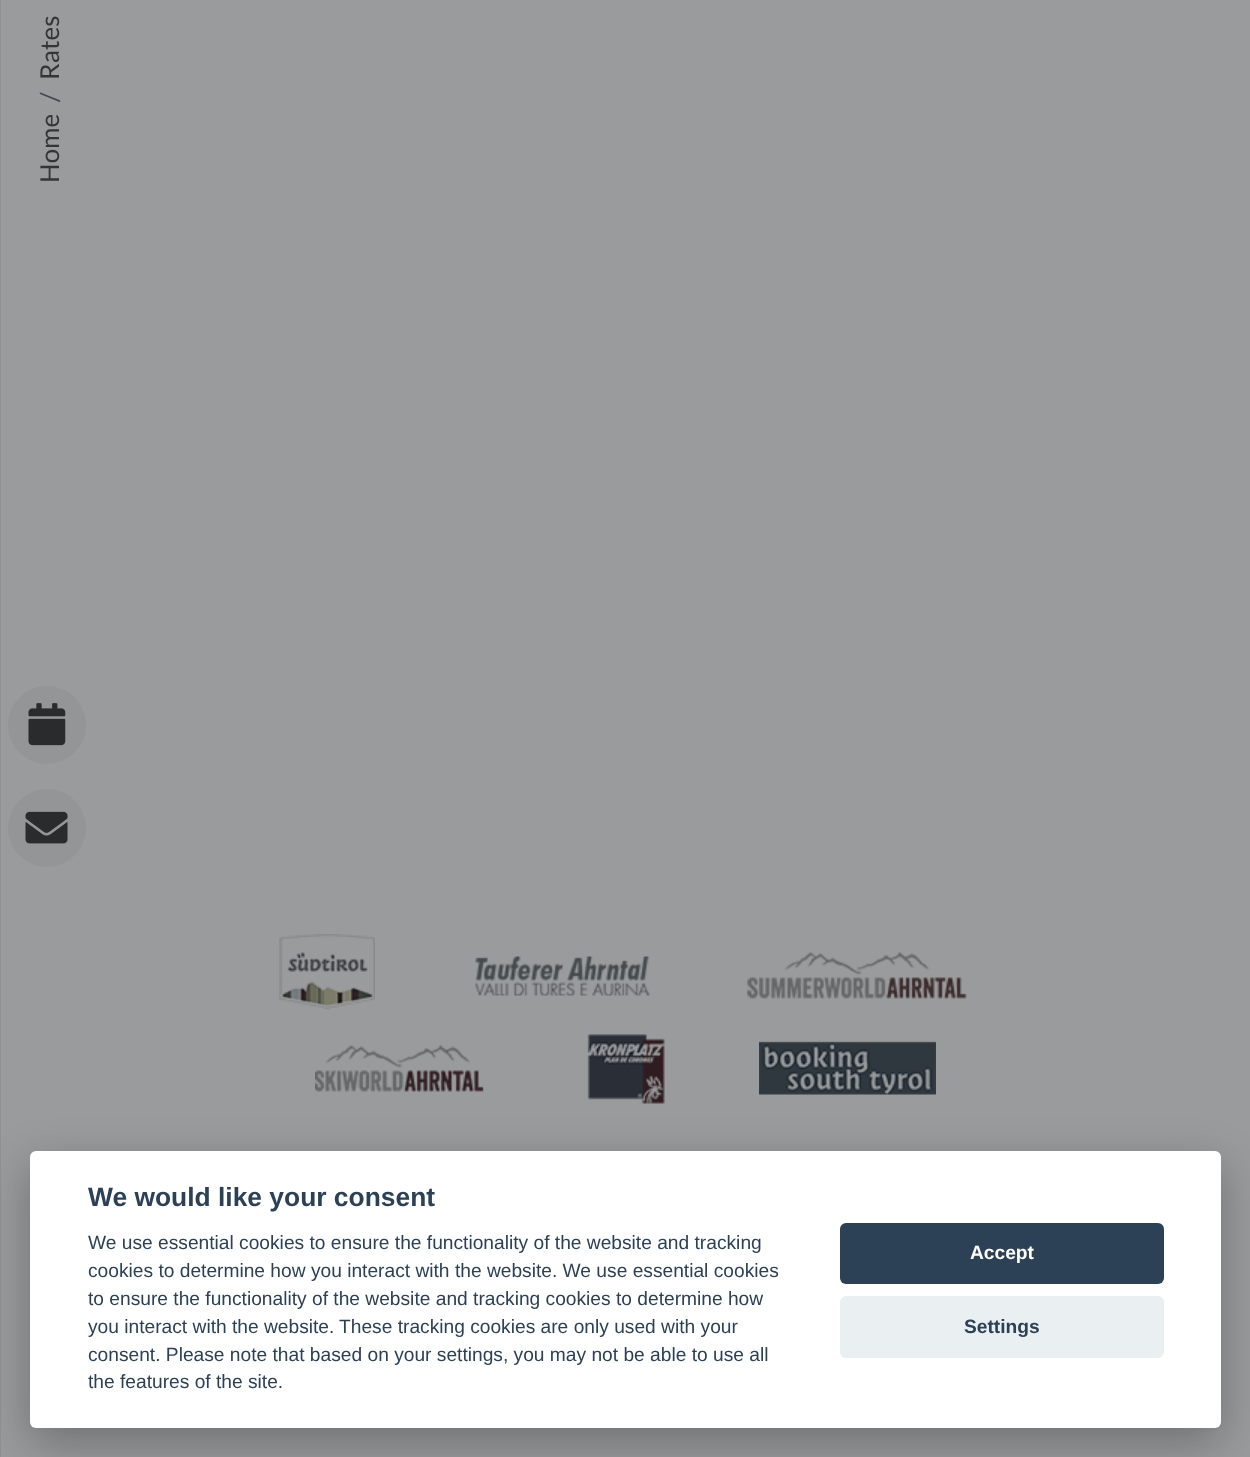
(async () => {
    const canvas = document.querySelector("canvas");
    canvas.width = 1250;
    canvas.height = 1457;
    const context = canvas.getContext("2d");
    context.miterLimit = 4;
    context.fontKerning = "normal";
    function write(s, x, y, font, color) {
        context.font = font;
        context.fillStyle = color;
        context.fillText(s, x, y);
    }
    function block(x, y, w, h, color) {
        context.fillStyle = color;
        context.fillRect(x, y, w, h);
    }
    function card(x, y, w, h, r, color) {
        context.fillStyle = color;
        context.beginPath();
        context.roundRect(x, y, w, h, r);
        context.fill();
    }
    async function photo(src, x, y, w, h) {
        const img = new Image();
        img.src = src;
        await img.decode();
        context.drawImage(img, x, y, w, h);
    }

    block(0, 0, 1250, 1457, "rgb(153, 155, 156)");
    block(0, 0, 1, 1457, "rgb(143, 145, 146)");
    context.font = "26px Lato";
    context.fillStyle = "rgb(51, 53, 54)";
    context.save();
    context.translate(59, 80);
    context.rotate(-90 * Math.PI / 180);
    context.fillText("Rates", 0, 0);
    context.restore();
    context.fillStyle = "rgb(65, 72, 78)";
    context.save();
    context.translate(59, 102);
    context.rotate(-90 * Math.PI / 180);
    context.fillText("/", 0, 0);
    context.restore();
    context.fillStyle = "rgb(51, 53, 54)";
    context.save();
    context.translate(59, 183);
    context.rotate(-90 * Math.PI / 180);
    context.fillText("Home", 0, 0);
    context.restore();
    context.fillStyle = "rgb(147, 149, 150)";
    context.beginPath();
    context.arc(47, 725, 39, 0, Math.PI * 2);
    context.fill();
    await photo("media/1.png", 28, 703, 38, 43);
    context.beginPath();
    context.arc(47, 828, 39, 0, Math.PI * 2);
    context.fill();
    await photo("media/2.png", 25, 811, 43, 33);
    await photo("media/3.png", 279, 934, 96, 76);
    await photo("media/4.png", 475, 956, 175, 40);
    await photo("media/5.png", 747, 951, 220, 48);
    await photo("media/6.png", 315, 1044, 169, 48);
    await photo("media/7.png", 587, 1034, 78, 70);
    await photo("media/8.png", 759, 1041, 177, 54);
    context.fillStyle = "rgba(2, 2, 3, 0.28)";
    context.filter = "blur(22.5px)";
    context.beginPath();
    context.roundRect(30, 1166, 1191, 277, 6);
    context.fill();
    context.filter = "none";
    card(30, 1151, 1191, 277, 6, "rgb(255, 255, 255)");
    write("We would like your consent", 88, 1206, "bold 26.4px Liberation Sans", "rgb(45, 65, 86)");
    write("We use essential cookies to ensure the functionality of the website and tracking", 88, 1249, "19.2px Liberation Sans", "rgb(45, 65, 86)");
    write("cookies to determine how you interact with the website. We use essential cookies", 88, 1277, "19.2px Liberation Sans", "rgb(45, 65, 86)");
    write("to ensure the functionality of the website and tracking cookies to determine how", 88, 1305, "19.2px Liberation Sans", "rgb(45, 65, 86)");
    write("you interact with the website.", 88, 1333, "19.2px Liberation Sans", "rgb(45, 65, 86)");
    write("These tracking cookies are only used with your", 339, 1333, "19.2px Liberation Sans", "rgb(45, 65, 86)");
    write("consent. Please note that based on your settings, you may not be able to use all", 88, 1361, "19.2px Liberation Sans", "rgb(45, 65, 86)");
    write("the features of the site.", 88, 1388, "19.2px Liberation Sans", "rgb(45, 65, 86)");
    card(840, 1223, 324, 61, 6, "rgb(45, 65, 86)");
    write("Accept", 970, 1259, "bold 19.2px Liberation Sans", "rgb(255, 255, 255)");
    card(840, 1296, 324, 62, 6, "rgb(234, 239, 242)");
    write("Settings", 964, 1333, "bold 19.2px Liberation Sans", "rgb(45, 65, 86)");
})();
